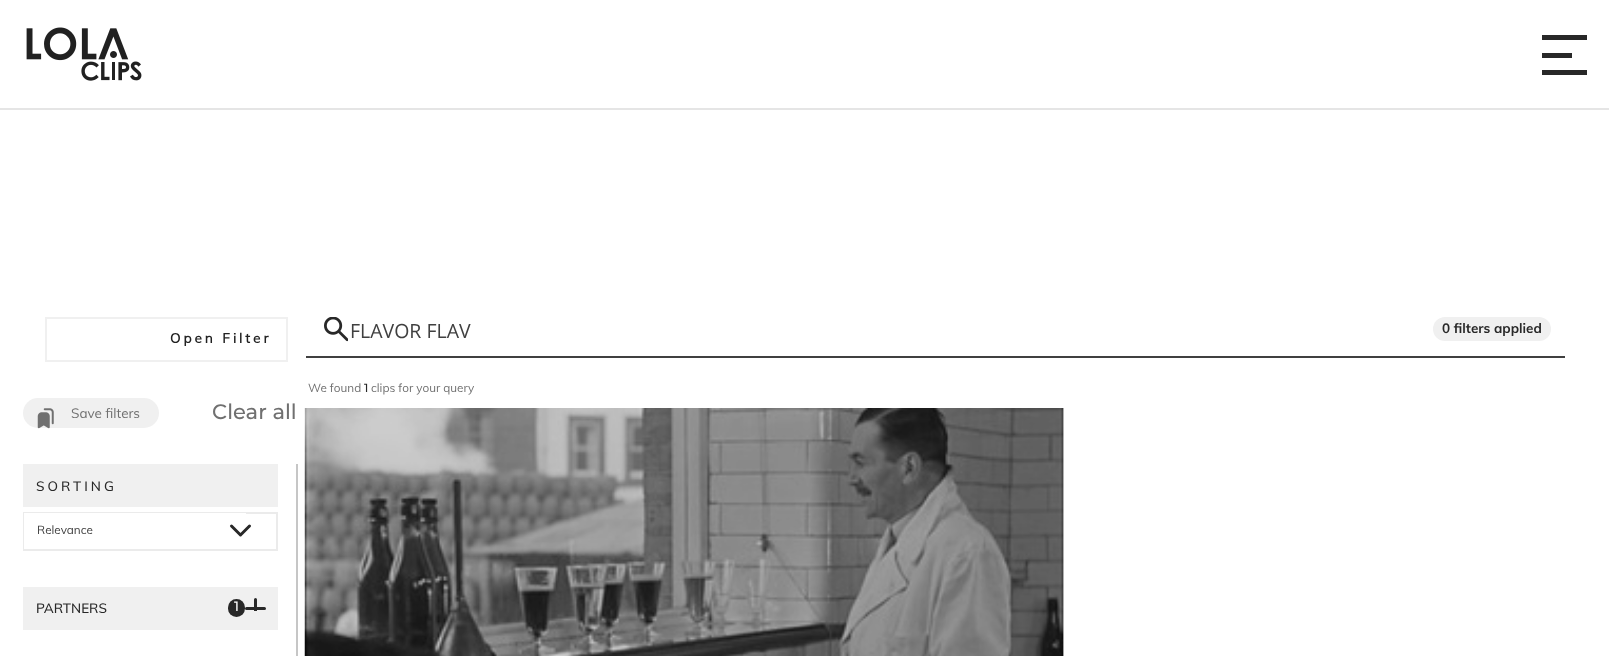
(async () => {
    const canvas = document.querySelector("canvas");
    canvas.width = 1609;
    canvas.height = 656;
    const context = canvas.getContext("2d");
    context.miterLimit = 4;
    context.fontKerning = "normal";
    function write(s, x, y, font, color) {
        context.font = font;
        context.fillStyle = color;
        context.fillText(s, x, y);
    }
    function block(x, y, w, h, color) {
        context.fillStyle = color;
        context.fillRect(x, y, w, h);
    }
    function card(x, y, w, h, r, color) {
        context.fillStyle = color;
        context.beginPath();
        context.roundRect(x, y, w, h, r);
        context.fill();
    }
    async function photo(src, x, y, w, h) {
        const img = new Image();
        img.src = src;
        await img.decode();
        context.drawImage(img, x, y, w, h);
    }

    block(0, 0, 1609, 656, "rgb(255, 255, 255)");
    block(0, 108, 1609, 2, "rgb(229, 229, 229)");
    await photo("media/1.png", 26, 27, 116, 54);
    context.fillStyle = "rgb(40, 40, 40)";
    context.beginPath();
    context.moveTo(1542, 35);
    context.lineTo(1587, 35);
    context.lineTo(1587, 40);
    context.lineTo(1542, 40);
    context.closePath();
    context.moveTo(1542, 53);
    context.lineTo(1572, 53);
    context.lineTo(1572, 58);
    context.lineTo(1542, 58);
    context.closePath();
    context.moveTo(1542, 70);
    context.lineTo(1587, 70);
    context.lineTo(1587, 75);
    context.lineTo(1542, 75);
    context.closePath();
    context.fill();
    block(1063, 408, 1, 248, "rgb(211, 211, 211)");
    context.strokeStyle = "rgb(240, 240, 240)";
    context.lineWidth = 2;
    context.strokeRect(46, 318, 241, 43);
    context.letterSpacing = "3px";
    write("Open Filter", 170, 343, "bold 13.5px Mulish", "rgb(34, 34, 34)");
    await photo("media/2.png", 324, 317, 24, 25);
    block(306, 356, 1259, 2, "rgb(64, 64, 64)");
    context.letterSpacing = "0px";
    write("FLAVOR FLAV", 350, 338, "19.5px Open Sans", "rgb(64, 64, 64)");
    card(1433, 317, 118, 24, 12, "rgb(240, 240, 240)");
    write("0 filters applied", 1442, 333, "bold 13.5px 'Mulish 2'", "rgb(40, 40, 40)");
    write("We found", 308, 392, "11.75px Mulish", "rgb(112, 112, 112)");
    write("1", 364, 392, "500 11.75px Montserrat", "rgb(40, 40, 40)");
    write("clips for your query", 371, 392, "11.75px Mulish", "rgb(112, 112, 112)");
    await photo("media/3.png", 304, 408, 760, 248);
    card(23, 398, 136, 30, 15, "rgb(240, 240, 240)");
    await photo("media/4.png", 37, 408, 17, 21);
    write("Save filters", 71, 418, "13.5px Mulish", "rgb(112, 112, 112)");
    write("Clear all", 212, 419, "500 21px Montserrat", "rgb(112, 112, 112)");
    block(296, 464, 2, 192, "rgb(198, 198, 198)");
    block(23, 464, 255, 43, "rgb(240, 240, 240)");
    context.letterSpacing = "3px";
    write("SORTING", 36, 491, "500 13.5px Mulish", "rgb(40, 40, 40)");
    context.strokeStyle = "rgb(235, 235, 235)";
    context.strokeRect(24, 513, 253, 37);
    block(24, 513, 222, 36, "rgb(255, 255, 255)");
    context.letterSpacing = "0px";
    write("Relevance", 37, 534, "11.75px Mulish", "rgb(64, 64, 64)");
    context.beginPath();
    context.moveTo(231.5, 526);
    context.lineTo(240.5, 535);
    context.lineTo(249.5, 526);
    context.strokeStyle = "rgb(40, 40, 40)";
    context.lineWidth = 3;
    context.lineCap = "round";
    context.lineJoin = "round";
    context.stroke();
    block(23, 587, 255, 43, "rgb(240, 240, 240)");
    write("PARTNERS", 36, 613, "500 13.5px Mulish", "rgb(40, 40, 40)");
    card(228, 599, 17, 18, 8.5, "rgb(40, 40, 40)");
    write("1", 234, 611, "500 13.5px Montserrat", "rgb(255, 255, 255)");
    context.save();
    context.beginPath();
    context.rect(245, 597, 25, 14);
    context.clip();
    context.beginPath();
    context.moveTo(246.5, 608.5);
    context.lineTo(264.5, 608.5);
    context.moveTo(255.5, 599.5);
    context.lineTo(255.5, 617.5);
    context.stroke();
    context.restore();
})();
